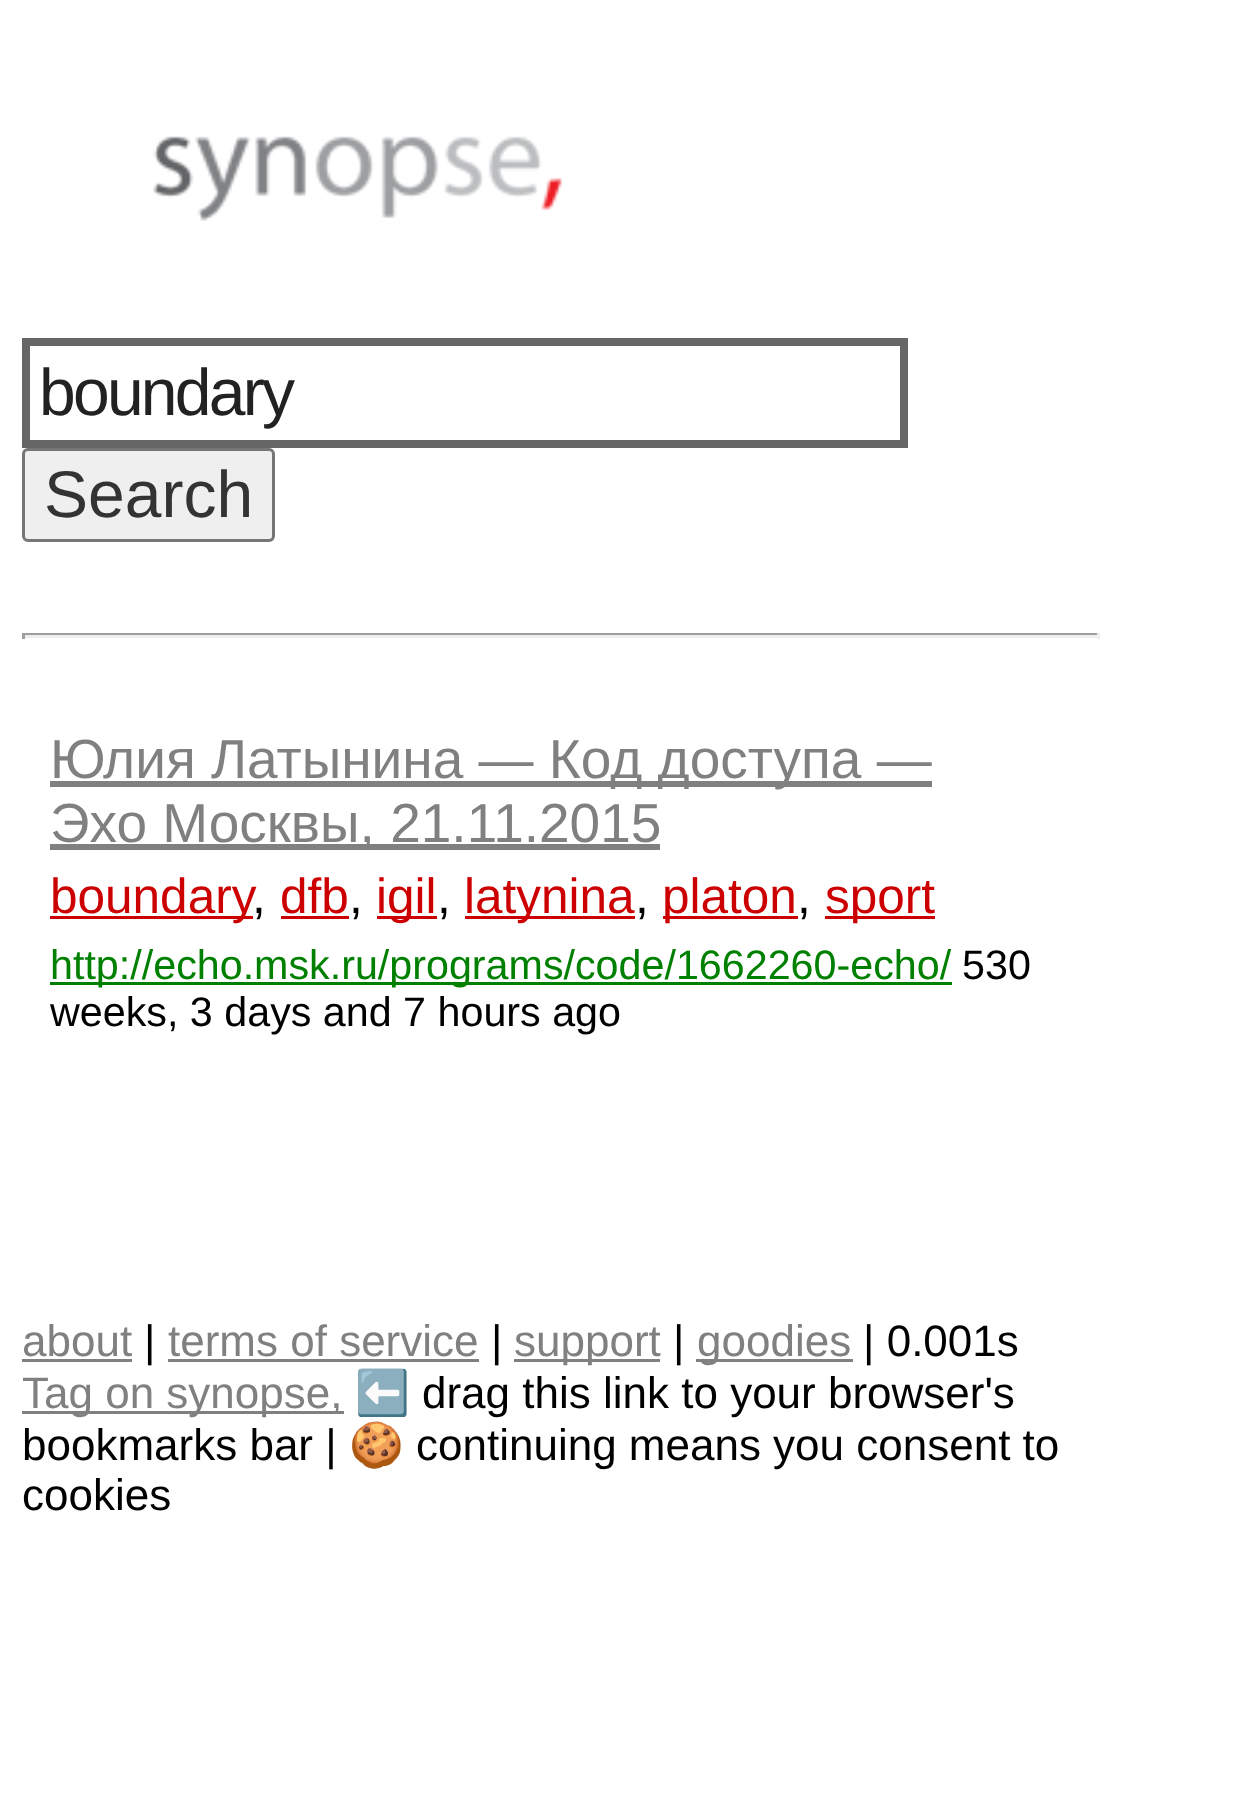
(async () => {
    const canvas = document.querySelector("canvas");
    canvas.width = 1238;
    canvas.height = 1816;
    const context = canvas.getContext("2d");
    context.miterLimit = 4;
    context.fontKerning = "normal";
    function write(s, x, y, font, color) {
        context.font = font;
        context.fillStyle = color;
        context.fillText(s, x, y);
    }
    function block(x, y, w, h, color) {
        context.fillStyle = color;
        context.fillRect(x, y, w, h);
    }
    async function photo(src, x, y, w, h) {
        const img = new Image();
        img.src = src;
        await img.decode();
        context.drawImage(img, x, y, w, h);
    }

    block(0, 0, 1238, 1816, "rgb(255, 255, 255)");
    await photo("media/1.png", 153, 136, 409, 85);
    context.strokeStyle = "rgb(102, 102, 102)";
    context.lineWidth = 8;
    context.strokeRect(26, 342, 878, 102);
    context.letterSpacing = "-2.75px";
    write("boundary", 39, 415, "66px Liberation Sans", "rgb(34, 34, 34)");
    context.fillStyle = "rgb(239, 239, 239)";
    context.beginPath();
    context.roundRect(23.5, 449.5, 250, 91, 4.5);
    context.fill();
    context.strokeStyle = "rgb(118, 118, 118)";
    context.lineWidth = 3;
    context.stroke();
    context.letterSpacing = "0px";
    write("Search", 44, 517, "66px Liberation Sans", "rgb(51, 51, 51)");
    block(22, 633, 1078, 2, "rgb(159, 159, 159)");
    block(1097, 633, 3, 6, "rgb(238, 238, 238)");
    block(22, 635, 1078, 3, "rgb(238, 238, 238)");
    block(22, 633, 3, 6, "rgb(159, 159, 159)");
    block(50, 781, 882, 6, "rgb(128, 128, 128)");
    write("Юлия Латынина — Код доступа —", 50, 778, "55px Liberation Sans", "rgb(128, 128, 128)");
    block(50, 844, 610, 6, "rgb(128, 128, 128)");
    write("Эхо Москвы, 21.11.2015", 50, 842, "55px Liberation Sans", "rgb(128, 128, 128)");
    block(50, 916, 203, 3, "rgb(204, 0, 0)");
    write("boundary", 50, 913, "49.5px Liberation Sans", "rgb(204, 0, 0)");
    write(",", 252, 913, "49.5px Liberation Sans", "rgb(0, 0, 0)");
    write("dfb", 280, 913, "49.5px Liberation Sans", "rgb(204, 0, 0)");
    block(281, 916, 68, 3, "rgb(204, 0, 0)");
    write(",", 349, 913, "49.5px Liberation Sans", "rgb(0, 0, 0)");
    block(377, 916, 60, 3, "rgb(204, 0, 0)");
    write("igil", 376, 913, "49.5px Liberation Sans", "rgb(204, 0, 0)");
    write(",", 437, 913, "49.5px Liberation Sans", "rgb(0, 0, 0)");
    block(465, 916, 170, 3, "rgb(204, 0, 0)");
    write("latynina", 464, 913, "49.5px Liberation Sans", "rgb(204, 0, 0)");
    write(",", 635, 913, "49.5px Liberation Sans", "rgb(0, 0, 0)");
    block(663, 916, 135, 3, "rgb(204, 0, 0)");
    write("platon", 662, 913, "49.5px Liberation Sans", "rgb(204, 0, 0)");
    write(",", 797, 913, "49.5px Liberation Sans", "rgb(0, 0, 0)");
    block(825, 916, 110, 3, "rgb(204, 0, 0)");
    write("sport", 825, 913, "49.5px Liberation Sans", "rgb(204, 0, 0)");
    block(50, 982, 902, 3, "rgb(0, 128, 0)");
    write("http://echo.msk.ru/programs/code/1662260-echo/", 50, 979, "41.25px Liberation Sans", "rgb(0, 128, 0)");
    write("530", 962, 979, "41.25px Liberation Sans", "rgb(0, 0, 0)");
    write("weeks, 3 days and 7 hours ago", 50, 1026, "41.25px Liberation Sans", "rgb(0, 0, 0)");
    write("about", 22, 1356, "44px Liberation Sans", "rgb(128, 128, 128)");
    block(22, 1359, 110, 3, "rgb(128, 128, 128)");
    write("|", 144, 1356, "44px Liberation Sans", "rgb(0, 0, 0)");
    write("terms of service", 168, 1356, "44px Liberation Sans", "rgb(128, 128, 128)");
    block(168, 1359, 311, 3, "rgb(128, 128, 128)");
    write("|", 491, 1356, "44px Liberation Sans", "rgb(0, 0, 0)");
    block(514, 1359, 146, 3, "rgb(128, 128, 128)");
    write("support", 514, 1356, "44px Liberation Sans", "rgb(128, 128, 128)");
    write("|", 673, 1356, "44px Liberation Sans", "rgb(0, 0, 0)");
    block(696, 1359, 157, 3, "rgb(128, 128, 128)");
    write("goodies", 697, 1356, "44px Liberation Sans", "rgb(128, 128, 128)");
    write("| 0.001s", 863, 1356, "44px Liberation Sans", "rgb(0, 0, 0)");
    block(22, 1411, 322, 3, "rgb(128, 128, 128)");
    write("Tag on synopse,", 22, 1408, "44px Liberation Sans", "rgb(128, 128, 128)");
    write("⬅️", 355, 1408, "44px Noto Color Emoji", "rgb(0, 0, 0)");
    write("drag this link to your browser's", 422, 1408, "44px Liberation Sans", "rgb(0, 0, 0)");
    write("bookmarks bar |", 22, 1460, "44px Liberation Sans", "rgb(0, 0, 0)");
    write("🍪", 349, 1460, "44px Noto Color Emoji", "rgb(0, 0, 0)");
    write("continuing means you consent to", 416, 1460, "44px Liberation Sans", "rgb(0, 0, 0)");
    write("cookies", 22, 1510, "44px Liberation Sans", "rgb(0, 0, 0)");
})();
